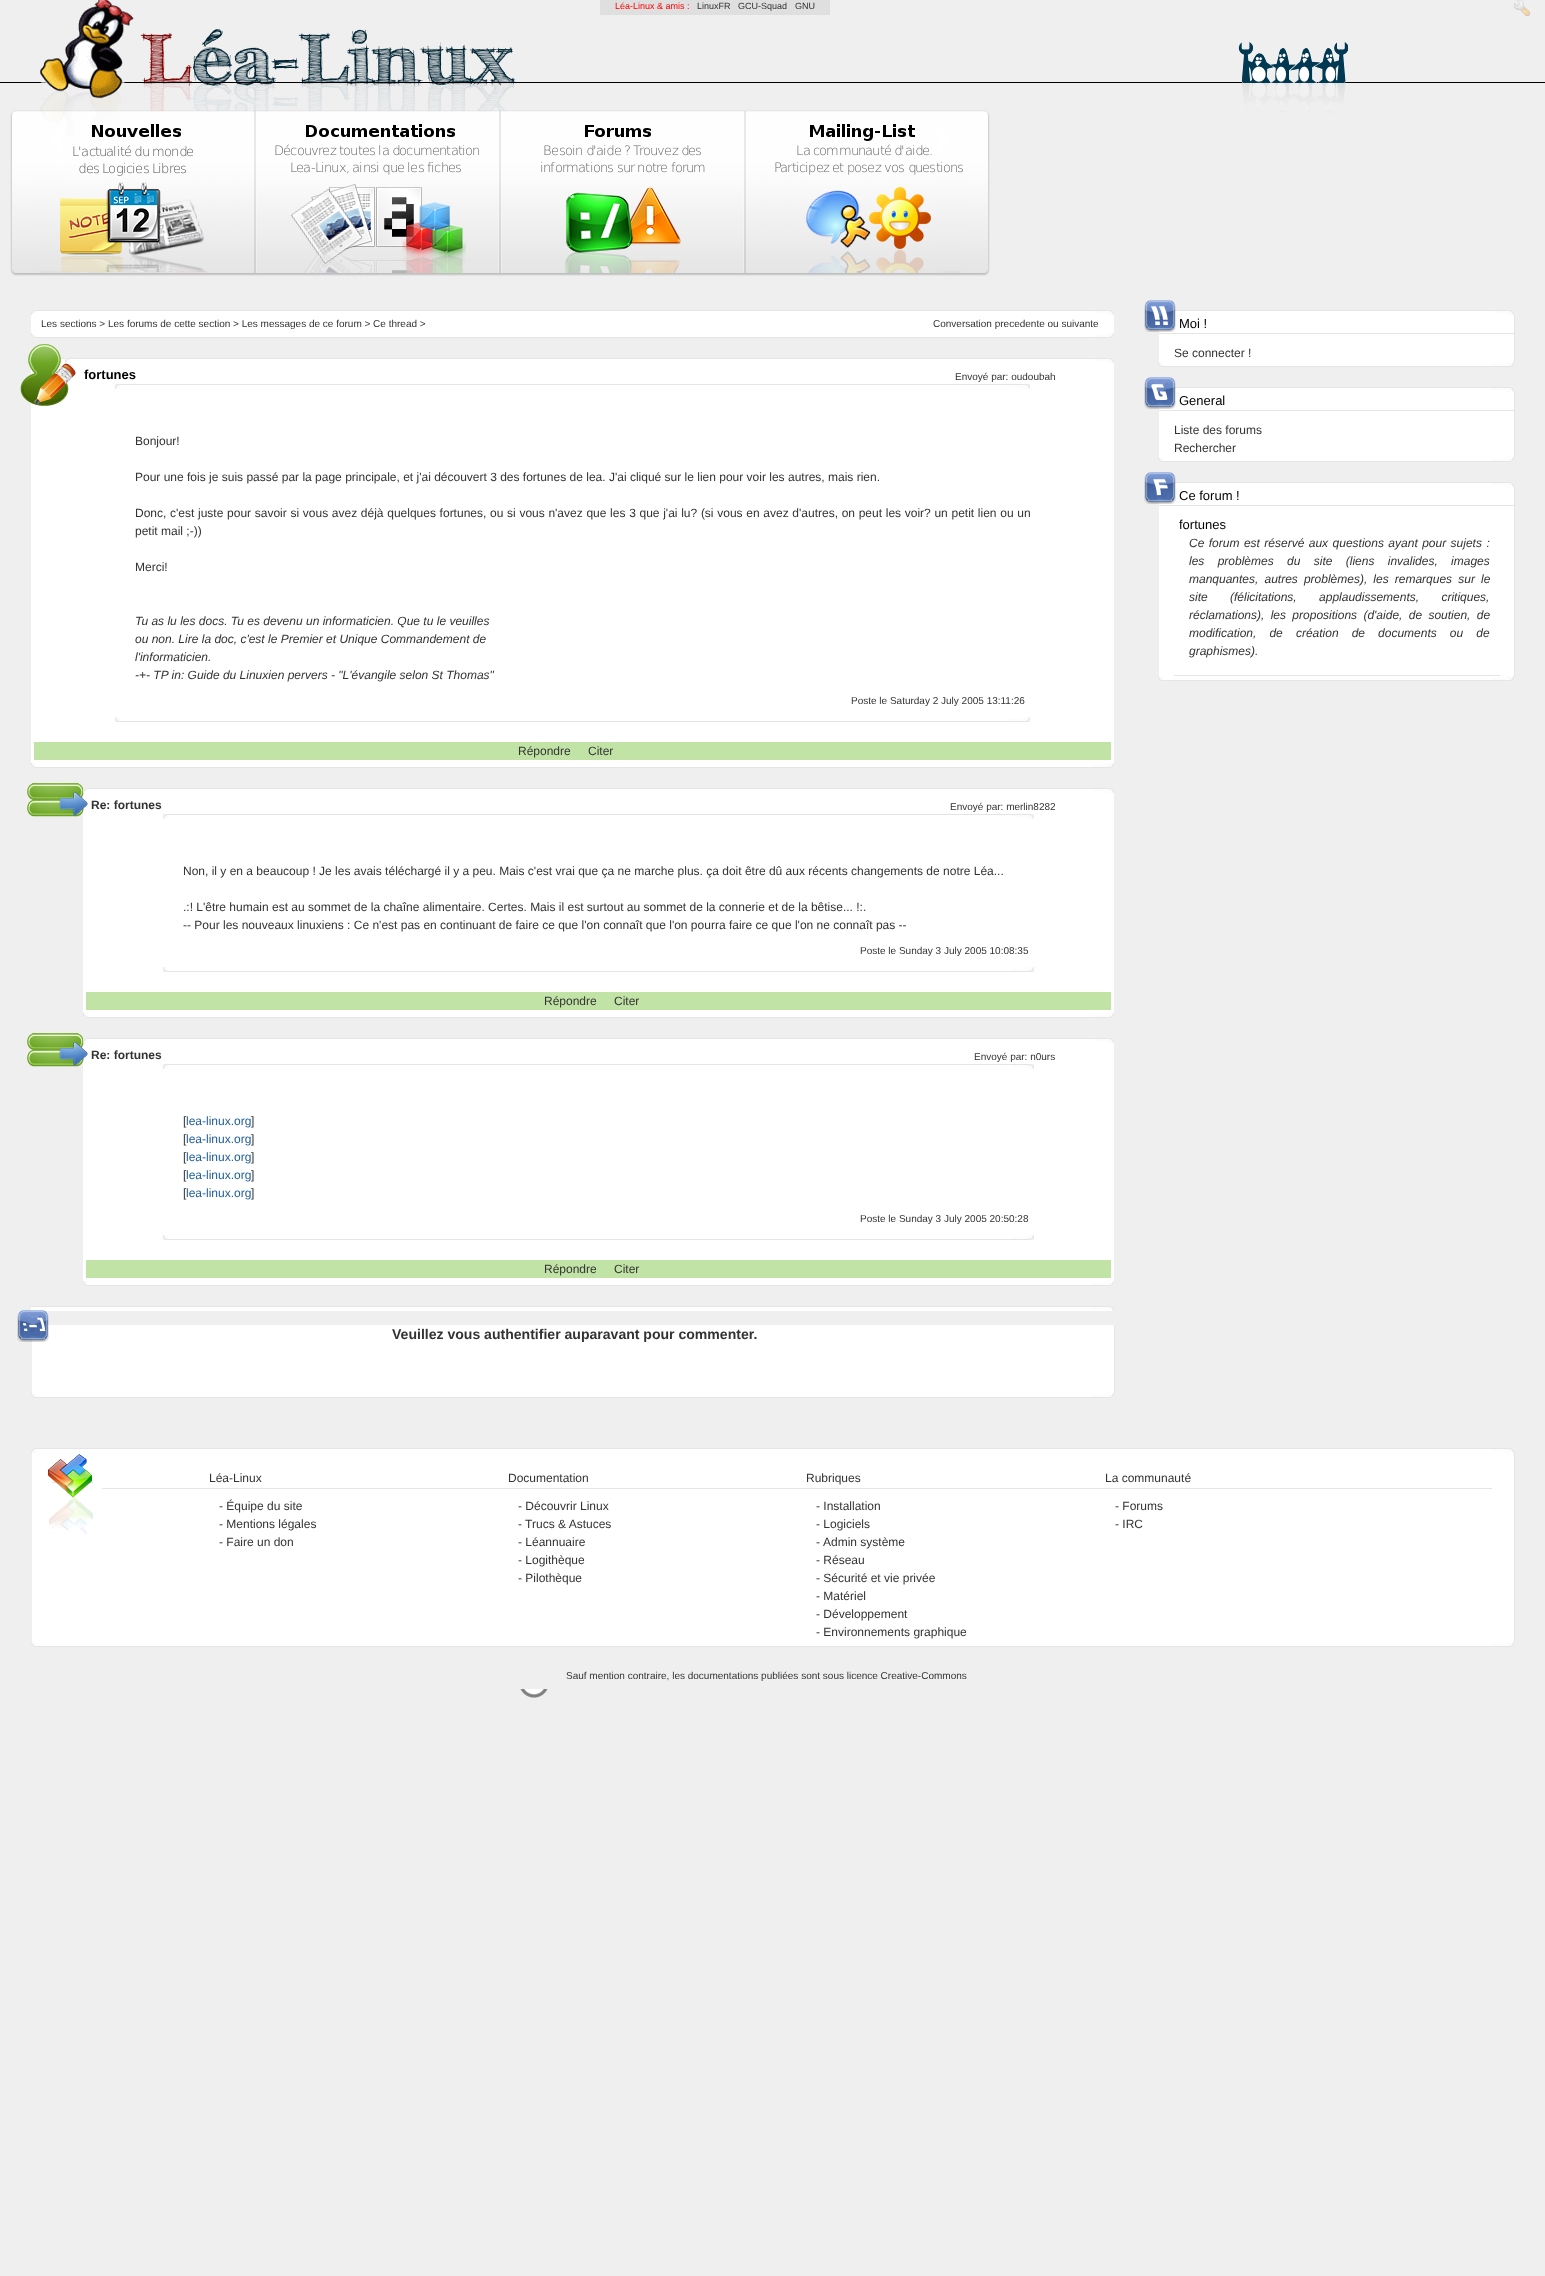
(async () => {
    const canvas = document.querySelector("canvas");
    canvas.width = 1545;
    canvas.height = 2276;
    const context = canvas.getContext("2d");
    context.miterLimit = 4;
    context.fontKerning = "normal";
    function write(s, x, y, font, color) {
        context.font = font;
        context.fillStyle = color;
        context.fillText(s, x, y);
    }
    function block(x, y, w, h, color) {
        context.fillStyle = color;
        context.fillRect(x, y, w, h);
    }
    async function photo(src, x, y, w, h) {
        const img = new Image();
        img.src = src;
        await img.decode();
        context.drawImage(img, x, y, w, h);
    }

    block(0, 0, 1545, 2276, "rgb(239, 239, 239)");
    await photo("media/7.png", 10, 110, 245, 166);
    await photo("media/10.png", 255, 110, 245, 166);
    await photo("media/10.png", 500, 110, 245, 166);
    await photo("media/3.png", 140, 29, 377, 82);
    block(0, 82, 1545, 1, "rgb(0, 0, 0)");
    await photo("media/8.png", 73, 124, 120, 52);
    await photo("media/6.png", 40, 91, 81, 46);
    await photo("media/1.png", 40, 0, 94, 99);
    await photo("media/2.png", 1514, 0, 16, 16);
    await photo("media/4.png", 1238, 42, 110, 41);
    await photo("media/5.png", 1242, 81, 104, 33);
    await photo("media/9.png", 60, 182, 148, 91);
    await photo("media/11.png", 275, 124, 204, 51);
    await photo("media/12.png", 290, 184, 176, 89);
    await photo("media/13.png", 541, 125, 164, 48);
    await photo("media/14.png", 565, 187, 116, 86);
    await photo("media/15.png", 745, 110, 245, 166);
    await photo("media/16.png", 775, 124, 188, 51);
    await photo("media/17.png", 805, 187, 126, 86);
    block(600, 0, 230, 15, "rgb(223, 223, 223)");
    write("Léa-Linux & amis :", 615, 9, "9px Liberation Sans", "rgb(255, 0, 0)");
    write("LinuxFR", 697, 9, "9px Liberation Sans", "rgb(51, 51, 51)");
    write("GCU-Squad", 738, 9, "9px Liberation Sans", "rgb(51, 51, 51)");
    write("GNU", 795, 9, "9px Liberation Sans", "rgb(51, 51, 51)");
    block(31, 315, 1083, 18, "rgb(255, 255, 255)");
    await photo("media/18.png", 31, 310, 1083, 5);
    write("Les sections > Les forums de cette section > Les messages de ce forum > Ce thread >", 41, 327, "10px Liberation Sans", "rgb(51, 51, 51)");
    write("Conversation precedente ou suivante", 933, 327, "10px Liberation Sans", "rgb(51, 51, 51)");
    await photo("media/19.png", 31, 333, 1083, 5);
    await photo("media/21.png", 60, 358, 1054, 5);
    block(31, 363, 1083, 400, "rgb(255, 255, 255)");
    await photo("media/20.png", 20, 344, 56, 62);
    write("fortunes", 84, 379, "bold 13px Liberation Sans", "rgb(0, 0, 0)");
    write("Envoyé par: oudoubah", 955, 380, "10px Liberation Sans", "rgb(51, 51, 51)");
    await photo("media/22.png", 115, 384, 915, 5);
    write("Bonjour!", 135, 445, "12px Liberation Sans", "rgb(51, 51, 51)");
    write("Pour une fois je suis passé par la page principale, et j'ai découvert 3 des fortunes de lea. J'ai cliqué sur le lien pour voir les autres, mais rien.", 135, 481, "12px Liberation Sans", "rgb(51, 51, 51)");
    context.wordSpacing = "0.35px";
    write("Donc, c'est juste pour savoir si vous avez déjà quelques fortunes, ou si vous n'avez que les 3 que j'ai lu? (si vous en avez d'autres, on peut les voir? un petit lien ou un", 135, 517, "12px Liberation Sans", "rgb(51, 51, 51)");
    context.wordSpacing = "0px";
    write("petit mail ;-))", 135, 535, "12px Liberation Sans", "rgb(51, 51, 51)");
    write("Merci!", 135, 571, "12px Liberation Sans", "rgb(51, 51, 51)");
    write("Tu as lu les docs. Tu es devenu un informaticien. Que tu le veuilles", 135, 625, "italic 12px Liberation Sans", "rgb(51, 51, 51)");
    write("ou non. Lire la doc, c'est le Premier et Unique Commandement de", 135, 643, "italic 12px Liberation Sans", "rgb(51, 51, 51)");
    write("l'informaticien.", 135, 661, "italic 12px Liberation Sans", "rgb(51, 51, 51)");
    write("-+- TP in: Guide du Linuxien pervers - \"L'évangile selon St Thomas\"", 135, 679, "italic 12px Liberation Sans", "rgb(51, 51, 51)");
    write("Poste le Saturday 2 July 2005 13:11:26", 851, 704, "10px Liberation Sans", "rgb(51, 51, 51)");
    await photo("media/23.png", 115, 717, 915, 5);
    block(34, 742, 1077, 18, "rgb(194, 227, 166)");
    write("Répondre", 518, 755, "12px Liberation Sans", "rgb(51, 51, 51)");
    write("Citer", 588, 755, "12px Liberation Sans", "rgb(51, 51, 51)");
    await photo("media/19.png", 31, 763, 1083, 5);
    await photo("media/25.png", 84, 788, 1030, 5);
    block(83, 793, 1031, 220, "rgb(255, 255, 255)");
    await photo("media/24.png", 27, 783, 61, 34);
    await photo("media/26.png", 83, 788, 1, 5);
    write("Re: fortunes", 91, 809, "bold 12px Liberation Sans", "rgb(51, 51, 51)");
    write("Envoyé par: merlin8282", 950, 810, "10px Liberation Sans", "rgb(51, 51, 51)");
    await photo("media/27.png", 163, 814, 871, 5);
    write("Non, il y en a beaucoup ! Je les avais téléchargé il y a peu. Mais c'est vrai que ça ne marche plus. ça doit être dû aux récents changements de notre Léa...", 183, 875, "12px Liberation Sans", "rgb(51, 51, 51)");
    write(".:! L'être humain est au sommet de la chaîne alimentaire. Certes. Mais il est surtout au sommet de la connerie et de la bêtise... !:.", 183, 911, "12px Liberation Sans", "rgb(51, 51, 51)");
    write("-- Pour les nouveaux linuxiens : Ce n'est pas en continuant de faire ce que l'on connaît que l'on pourra faire ce que l'on ne connaît pas --", 183, 929, "12px Liberation Sans", "rgb(51, 51, 51)");
    write("Poste le Sunday 3 July 2005 10:08:35", 860, 954, "10px Liberation Sans", "rgb(51, 51, 51)");
    await photo("media/28.png", 163, 967, 871, 5);
    block(86, 992, 1025, 18, "rgb(194, 227, 166)");
    write("Répondre", 544, 1005, "12px Liberation Sans", "rgb(51, 51, 51)");
    write("Citer", 614, 1005, "12px Liberation Sans", "rgb(51, 51, 51)");
    await photo("media/29.png", 83, 1013, 1031, 5);
    await photo("media/25.png", 84, 1038, 1030, 5);
    block(83, 1043, 1031, 238, "rgb(255, 255, 255)");
    await photo("media/24.png", 27, 1033, 61, 34);
    await photo("media/26.png", 83, 1038, 1, 5);
    write("Re: fortunes", 91, 1059, "bold 12px Liberation Sans", "rgb(51, 51, 51)");
    write("Envoyé par: n0urs", 974, 1060, "10px Liberation Sans", "rgb(51, 51, 51)");
    await photo("media/27.png", 163, 1064, 871, 5);
    write("[", 183, 1125, "12px Liberation Sans", "rgb(51, 51, 51)");
    write("lea-linux.org", 186, 1125, "12px Liberation Sans", "rgb(32, 96, 153)");
    write("]", 251, 1125, "12px Liberation Sans", "rgb(51, 51, 51)");
    write("[", 183, 1143, "12px Liberation Sans", "rgb(51, 51, 51)");
    write("lea-linux.org", 186, 1143, "12px Liberation Sans", "rgb(32, 96, 153)");
    write("]", 251, 1143, "12px Liberation Sans", "rgb(51, 51, 51)");
    write("[", 183, 1161, "12px Liberation Sans", "rgb(51, 51, 51)");
    write("lea-linux.org", 186, 1161, "12px Liberation Sans", "rgb(32, 96, 153)");
    write("]", 251, 1161, "12px Liberation Sans", "rgb(51, 51, 51)");
    write("[", 183, 1179, "12px Liberation Sans", "rgb(51, 51, 51)");
    write("lea-linux.org", 186, 1179, "12px Liberation Sans", "rgb(32, 96, 153)");
    write("]", 251, 1179, "12px Liberation Sans", "rgb(51, 51, 51)");
    write("[", 183, 1197, "12px Liberation Sans", "rgb(51, 51, 51)");
    write("lea-linux.org", 186, 1197, "12px Liberation Sans", "rgb(32, 96, 153)");
    write("]", 251, 1197, "12px Liberation Sans", "rgb(51, 51, 51)");
    write("Poste le Sunday 3 July 2005 20:50:28", 860, 1222, "10px Liberation Sans", "rgb(51, 51, 51)");
    await photo("media/28.png", 163, 1235, 871, 5);
    block(86, 1260, 1025, 18, "rgb(194, 227, 166)");
    write("Répondre", 544, 1273, "12px Liberation Sans", "rgb(51, 51, 51)");
    write("Citer", 614, 1273, "12px Liberation Sans", "rgb(51, 51, 51)");
    await photo("media/29.png", 83, 1281, 1031, 5);
    await photo("media/30.png", 31, 1306, 1083, 5);
    block(32, 1325, 1082, 68, "rgb(255, 255, 255)");
    block(1114, 1325, 1, 68, "rgb(229, 229, 229)");
    await photo("media/31.png", 17, 1310, 32, 32);
    write("Veuillez vous authentifier auparavant pour commenter.", 392, 1339, "bold 14.05px Liberation Sans", "rgb(51, 51, 51)");
    await photo("media/19.png", 31, 1393, 1083, 5);
    await photo("media/32.png", 1174, 310, 340, 5);
    block(1159, 315, 355, 47, "rgb(255, 255, 255)");
    block(1514, 315, 1, 47, "rgb(229, 229, 229)");
    await photo("media/33.png", 1144, 300, 32, 32);
    write("Moi !", 1179, 328, "13px Liberation Sans", "rgb(0, 0, 0)");
    block(1159, 333, 355, 1, "rgb(229, 229, 229)");
    write("Se connecter !", 1174, 357, "12px Liberation Sans", "rgb(51, 51, 51)");
    await photo("media/34.png", 1158, 362, 356, 5);
    await photo("media/32.png", 1174, 387, 340, 5);
    block(1159, 392, 355, 65, "rgb(255, 255, 255)");
    block(1514, 392, 1, 65, "rgb(229, 229, 229)");
    await photo("media/35.png", 1144, 377, 32, 32);
    write("General", 1179, 405, "13px Liberation Sans", "rgb(0, 0, 0)");
    block(1159, 410, 355, 1, "rgb(229, 229, 229)");
    write("Liste des forums", 1174, 434, "12px Liberation Sans", "rgb(51, 51, 51)");
    write("Rechercher", 1174, 452, "12px Liberation Sans", "rgb(51, 51, 51)");
    await photo("media/34.png", 1158, 457, 356, 5);
    await photo("media/32.png", 1174, 482, 340, 5);
    block(1159, 487, 355, 189, "rgb(255, 255, 255)");
    block(1514, 487, 1, 189, "rgb(229, 229, 229)");
    await photo("media/36.png", 1144, 472, 32, 32);
    write("Ce forum !", 1179, 500, "13px Liberation Sans", "rgb(0, 0, 0)");
    block(1159, 505, 355, 1, "rgb(229, 229, 229)");
    write("fortunes", 1179, 529, "13px Liberation Sans", "rgb(0, 0, 0)");
    context.wordSpacing = "1.1px";
    write("Ce forum est réservé aux questions ayant pour sujets :", 1189, 547, "italic 12px Liberation Sans", "rgb(51, 51, 51)");
    context.wordSpacing = "10px";
    write("les problèmes du site (liens invalides, images", 1189, 565, "italic 12px Liberation Sans", "rgb(51, 51, 51)");
    context.wordSpacing = "2.75px";
    write("manquantes, autres problèmes), les remarques sur le", 1189, 583, "italic 12px Liberation Sans", "rgb(51, 51, 51)");
    context.wordSpacing = "19px";
    write("site (félicitations, applaudissements, critiques,", 1189, 601, "italic 12px Liberation Sans", "rgb(51, 51, 51)");
    context.wordSpacing = "3px";
    write("réclamations), les propositions (d'aide, de soutien, de", 1189, 619, "italic 12px Liberation Sans", "rgb(51, 51, 51)");
    context.wordSpacing = "9.75px";
    write("modification, de création de documents ou de", 1189, 637, "italic 12px Liberation Sans", "rgb(51, 51, 51)");
    context.wordSpacing = "0px";
    write("graphismes).", 1189, 655, "italic 12px Liberation Sans", "rgb(51, 51, 51)");
    block(1174, 675, 326, 1, "rgb(229, 229, 229)");
    await photo("media/34.png", 1158, 676, 356, 5);
    await photo("media/37.png", 31, 1448, 1483, 5);
    block(32, 1453, 1482, 189, "rgb(255, 255, 255)");
    block(1514, 1453, 1, 189, "rgb(229, 229, 229)");
    await photo("media/38.png", 48, 1454, 45, 81);
    write("Léa-Linux", 209, 1482, "12px Liberation Sans", "rgb(51, 51, 51)");
    write("- Équipe du site", 219, 1510, "12px Liberation Sans", "rgb(51, 51, 51)");
    write("- Mentions légales", 219, 1528, "12px Liberation Sans", "rgb(51, 51, 51)");
    write("- Faire un don", 219, 1546, "12px Liberation Sans", "rgb(51, 51, 51)");
    write("Documentation", 508, 1482, "12px Liberation Sans", "rgb(51, 51, 51)");
    write("- Découvrir Linux", 518, 1510, "12px Liberation Sans", "rgb(51, 51, 51)");
    write("- Trucs & Astuces", 518, 1528, "12px Liberation Sans", "rgb(51, 51, 51)");
    write("- Léannuaire", 518, 1546, "12px Liberation Sans", "rgb(51, 51, 51)");
    write("- Logithèque", 518, 1564, "12px Liberation Sans", "rgb(51, 51, 51)");
    write("- Pilothèque", 518, 1582, "12px Liberation Sans", "rgb(51, 51, 51)");
    write("Rubriques", 806, 1482, "12px Liberation Sans", "rgb(51, 51, 51)");
    write("- Installation", 816, 1510, "12px Liberation Sans", "rgb(51, 51, 51)");
    write("- Logiciels", 816, 1528, "12px Liberation Sans", "rgb(51, 51, 51)");
    write("-", 816, 1546, "12px Liberation Sans", "rgb(51, 51, 51)");
    write("Admin système", 823, 1546, "12px Liberation Sans", "rgb(51, 51, 51)");
    write("- Réseau", 816, 1564, "12px Liberation Sans", "rgb(51, 51, 51)");
    write("- Sécurité et vie privée", 816, 1582, "12px Liberation Sans", "rgb(51, 51, 51)");
    write("- Matériel", 816, 1600, "12px Liberation Sans", "rgb(51, 51, 51)");
    write("- Développement", 816, 1618, "12px Liberation Sans", "rgb(51, 51, 51)");
    write("- Environnements graphique", 816, 1636, "12px Liberation Sans", "rgb(51, 51, 51)");
    write("La communauté", 1105, 1482, "12px Liberation Sans", "rgb(51, 51, 51)");
    write("- Forums", 1115, 1510, "12px Liberation Sans", "rgb(51, 51, 51)");
    write("- IRC", 1115, 1528, "12px Liberation Sans", "rgb(51, 51, 51)");
    block(102, 1488, 1390, 1, "rgb(229, 229, 229)");
    await photo("media/39.png", 31, 1642, 1483, 5);
    write("Sauf mention contraire, les documentations publiées sont sous licence Creative-Commons", 566, 1679, "10px Liberation Sans", "rgb(51, 51, 51)");
    await photo("media/40.png", 520, 1689, 28, 9);
})();
